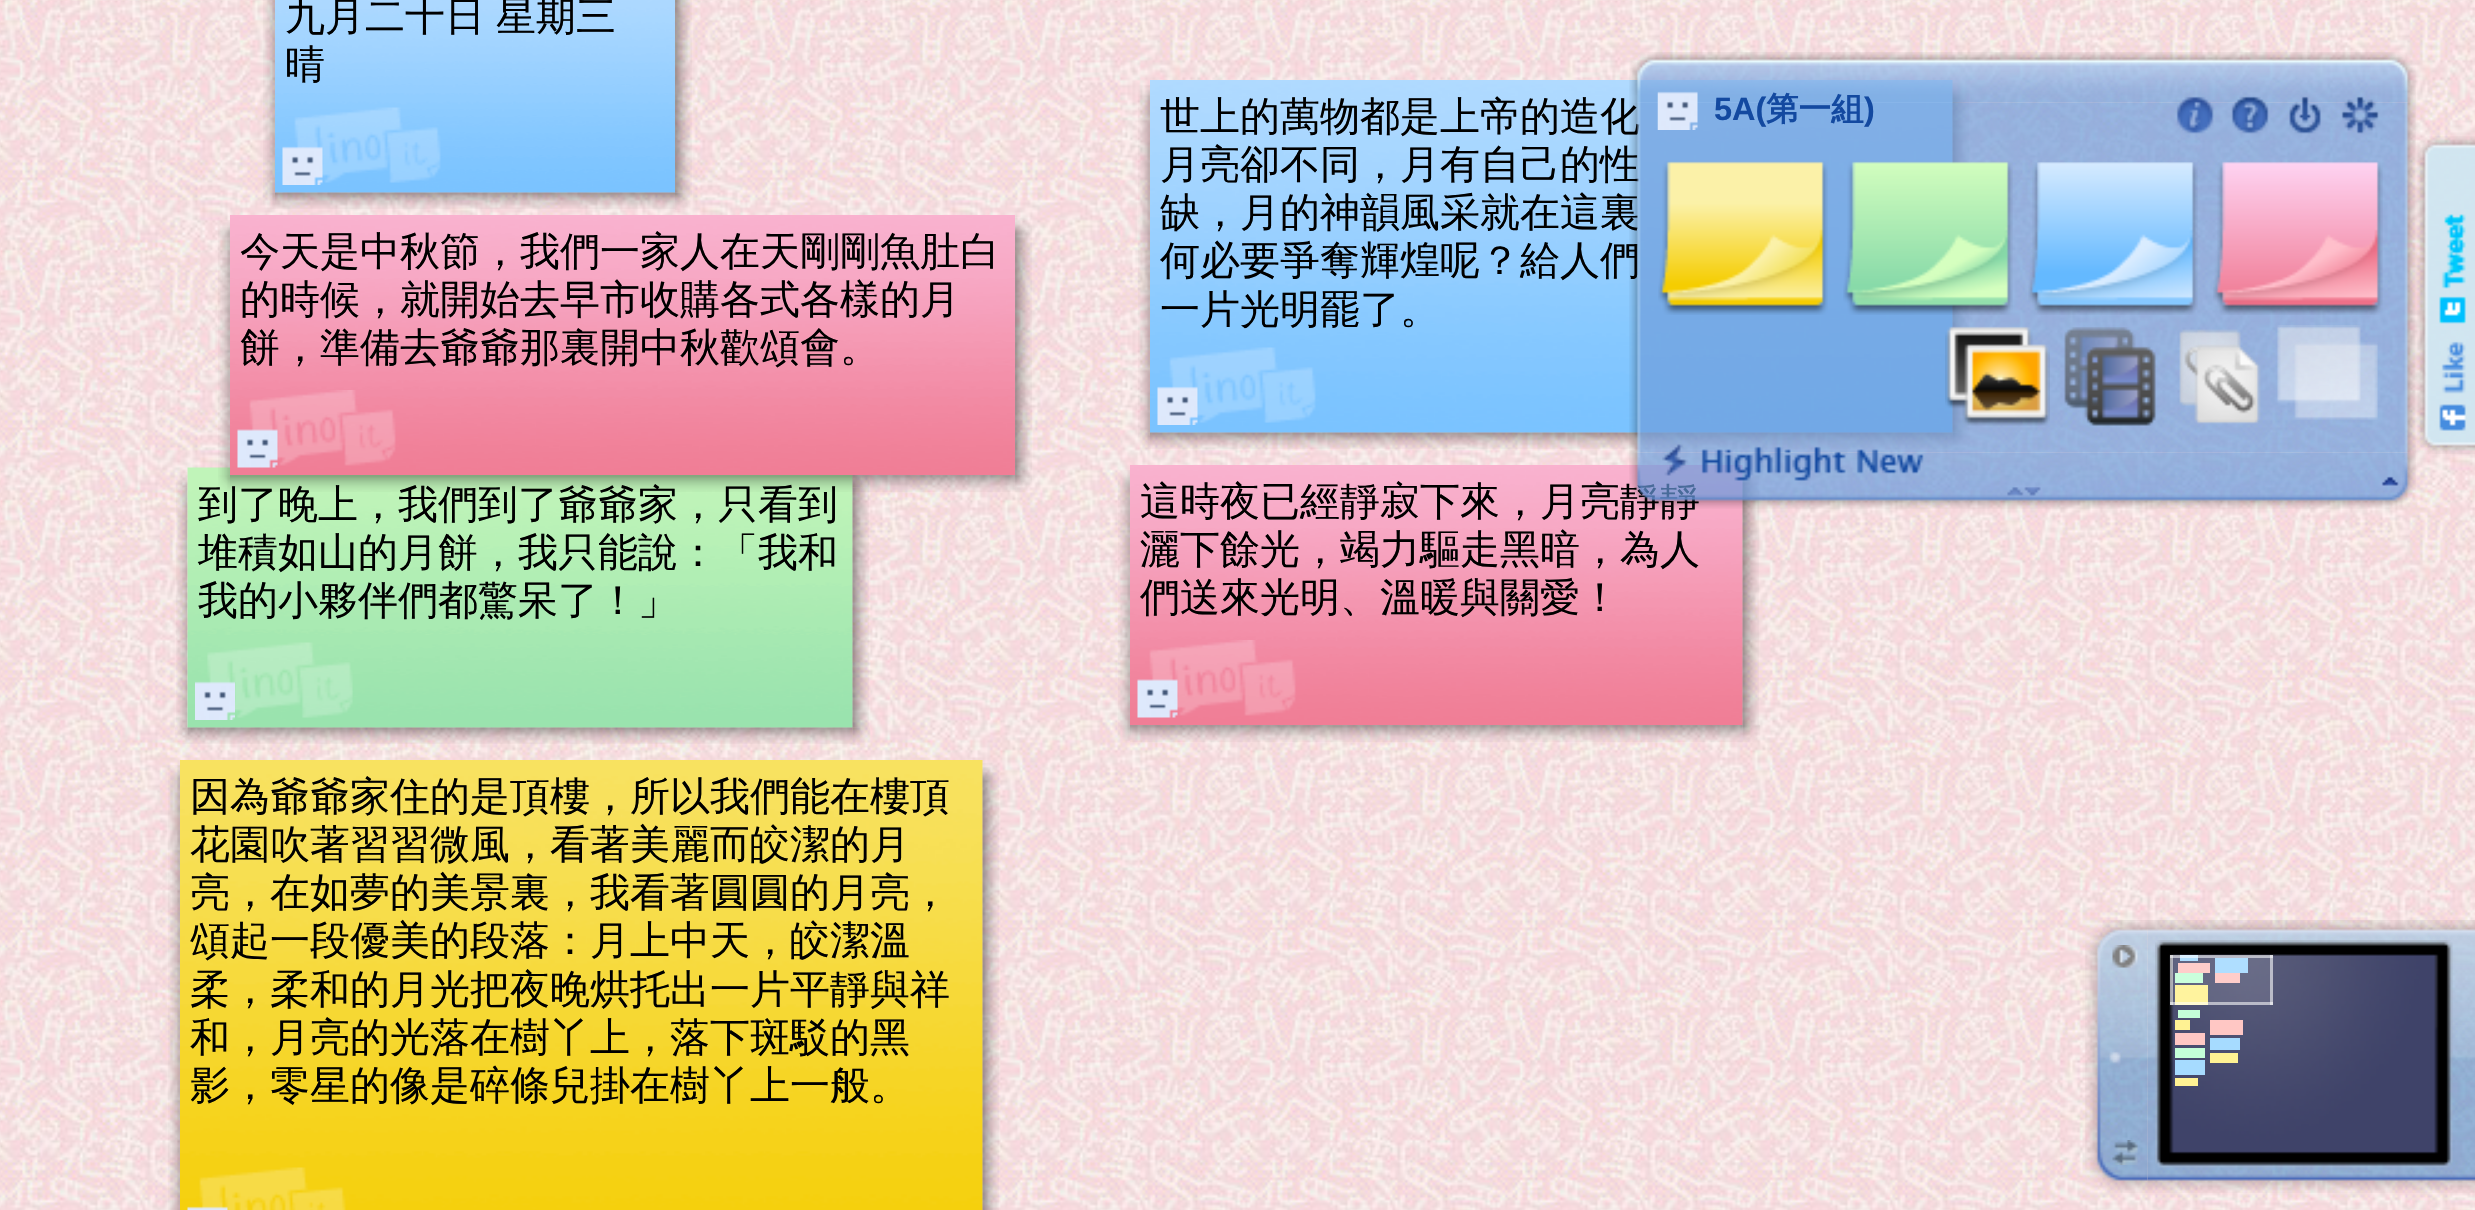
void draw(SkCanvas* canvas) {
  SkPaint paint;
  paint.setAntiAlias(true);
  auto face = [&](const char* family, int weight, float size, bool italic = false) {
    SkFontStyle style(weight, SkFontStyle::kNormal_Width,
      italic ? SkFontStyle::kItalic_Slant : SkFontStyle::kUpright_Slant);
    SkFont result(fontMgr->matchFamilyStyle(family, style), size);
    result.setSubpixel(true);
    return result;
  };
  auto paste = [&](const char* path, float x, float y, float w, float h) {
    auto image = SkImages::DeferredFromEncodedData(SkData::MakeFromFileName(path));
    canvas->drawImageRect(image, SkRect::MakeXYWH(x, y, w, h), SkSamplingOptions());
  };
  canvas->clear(0xffffffff);
  paste("img/1.png", 0, 0, 2475, 1210);
  paste("img/2.png", 263, 0, 12, 193);
  paste("img/3.png", 275, 0, 400, 193);
  paste("img/4.png", 675, 0, 17, 193);
  paste("img/5.png", 263, 192, 12, 17);
  paste("img/6.png", 275, 192, 400, 17);
  paste("img/7.png", 675, 192, 17, 18);
  paste("img/9.png", 294, 107, 147, 76);
  paste("img/8.png", 282, 146, 41, 39);
  paste("img/10.png", 218, 220, 12, 15);
  paste("img/30.png", 176, 472, 12, 16);
  paste("img/33.png", 176, 487, 12, 241);
  paste("img/35.png", 175, 727, 13, 17);
  paste("img/31.png", 187, 467, 666, 261);
  paste("img/11.png", 230, 215, 785, 260);
  paste("img/12.png", 1015, 218, 17, 17);
  paste("img/13.png", 218, 235, 12, 240);
  paste("img/14.png", 1015, 235, 17, 240);
  paste("img/17.png", 1015, 475, 17, 17);
  paste("img/19.png", 249, 390, 147, 76);
  paste("img/18.png", 237, 429, 41, 39);
  paste("img/20.png", 1138, 85, 12, 15);
  paste("img/21.png", 1150, 80, 803, 353);
  paste("img/22.png", 1952, 83, 17, 17);
  paste("img/23.png", 1138, 100, 12, 333);
  paste("img/24.png", 1952, 100, 17, 333);
  paste("img/25.png", 1138, 432, 12, 17);
  paste("img/27.png", 1952, 432, 18, 18);
  paste("img/26.png", 1150, 432, 803, 17);
  paste("img/29.png", 1169, 347, 147, 76);
  paste("img/28.png", 1157, 386, 41, 39);
  paste("img/32.png", 852, 475, 17, 13);
  paste("img/34.png", 852, 487, 17, 241);
  paste("img/37.png", 852, 727, 18, 18);
  paste("img/36.png", 187, 727, 666, 17);
  paste("img/39.png", 207, 642, 146, 76);
  paste("img/38.png", 195, 681, 40, 39);
  paste("img/40.png", 1118, 470, 12, 15);
  paste("img/41.png", 1130, 465, 613, 260);
  paste("img/42.png", 1742, 468, 17, 17);
  paste("img/43.png", 1118, 485, 12, 240);
  paste("img/44.png", 1742, 485, 17, 240);
  paste("img/45.png", 1118, 725, 12, 16);
  paste("img/47.png", 1742, 725, 18, 17);
  paste("img/46.png", 1130, 725, 613, 17);
  paste("img/49.png", 1149, 640, 147, 76);
  paste("img/48.png", 1137, 679, 41, 39);
  paste("img/50.png", 168, 765, 12, 15);
  paste("img/51.png", 180, 760, 803, 450);
  paste("img/52.png", 982, 763, 17, 17);
  paste("img/53.png", 168, 780, 12, 430);
  paste("img/54.png", 982, 780, 17, 430);
  paste("img/56.png", 199, 1167, 147, 43);
  paste("img/55.png", 187, 1206, 41, 4);
  paste("img/76.png", 2416, 136, 59, 318);
  paste("img/80.png", 2147, 920, 328, 273);
  paste("img/77.png", 2085, 920, 63, 273);
  paste("img/78.png", 2112, 945, 26, 23);
  paste("img/79.png", 2112, 1140, 26, 25);
  paste("img/81.png", 2155, 940, 298, 228);
  {
    const struct { float x, y, w, h; SkColor color; } items[] = {
      {2180, 955, 18, 6, 0xffa6dbff},
      {2215, 958, 33, 15, 0xffa6dbff},
      {2178, 963, 32, 10, 0xffffc7c4},
      {2175, 973, 28, 10, 0xffc4ffd8},
      {2215, 973, 25, 10, 0xffffc7c4},
      {2175, 985, 33, 20, 0xfffff293},
      {2170, 955, 103, 50, 0x1affffff},
      {2170, 955, 3, 50, 0x8cffffff},
      {2170, 955, 103, 3, 0x8cffffff},
      {2270, 955, 3, 50, 0x8cffffff},
      {2170, 1002, 103, 3, 0x8cffffff},
      {2178, 1010, 22, 8, 0xffc4ffd8},
      {2175, 1020, 15, 10, 0xfffff293},
      {2210, 1020, 33, 15, 0xffffc7c4},
      {2175, 1033, 30, 12, 0xffffc7c4},
      {2210, 1038, 30, 12, 0xffa6dbff},
      {2175, 1048, 30, 10, 0xffc4ffd8},
      {2210, 1053, 28, 10, 0xfffff293},
      {2175, 1060, 30, 15, 0xffa6dbff},
      {2175, 1078, 23, 8, 0xfffff293},
    };
    for (auto [x, y, w, h, color] : items) {
      paint.setColor(color);
      canvas->drawRect(SkRect::MakeXYWH(x, y, w, h), paint);
    }
  }
  auto f0 = face("WenQuanYi Zen Hei", 500, 40);
  paint.setColor(0xff000000);
  {
    const struct { const char* s; float x, y; } items[] = {
      {"九月二十日", 285, 30},
      {"星期三", 496, 30},
      {"晴", 285, 78},
      {"今天是中秋節，我們一家人在天剛剛魚肚白", 240, 265},
      {"的時候，就開始去早市收購各式各樣的月", 240, 313},
      {"餅，準備去爺爺那裏開中秋歡頌會。", 240, 361},
      {"世上的萬物都是上帝的造化", 1160, 130},
      {"月亮卻不同，月有自己的性", 1160, 178},
      {"缺，月的神韻風采就在這裏", 1160, 226},
      {"何必要爭奪輝煌呢？給人們", 1160, 274},
      {"一片光明罷了。", 1160, 323},
      {"到了晚上，我們到了爺爺家，只看到", 198, 518},
    };
    for (auto [s, x, y] : items) {
      canvas->drawString(s, x, y, f0, paint);
    }
  }
  paste("img/16.png", 230, 475, 785, 17);
  paste("img/15.png", 218, 475, 12, 16);
  {
    const struct { const char* s; float x, y; } items[] = {
      {"堆積如山的月餅，我只能說：「我和", 198, 566},
      {"我的小夥伴們都驚呆了！」", 198, 614},
      {"這時夜已經靜寂下來，月亮靜靜", 1140, 515},
      {"灑下餘光，竭力驅走黑暗，為人", 1140, 563},
      {"們送來光明、溫暖與關愛！", 1140, 611},
      {"因為爺爺家住的是頂樓，所以我們能在樓頂", 190, 810},
      {"花園吹著習習微風，看著美麗而皎潔的月", 190, 858},
      {"亮，在如夢的美景裏，我看著圓圓的月亮，", 190, 906},
      {"頌起一段優美的段落：月上中天，皎潔溫", 190, 954},
      {"柔，柔和的月光把夜晚烘托出一片平靜與祥", 190, 1003},
      {"和，月亮的光落在樹丫上，落下斑駁的黑", 190, 1051},
      {"影，零星的像是碎條兒掛在樹丫上一般。", 190, 1099},
    };
    for (auto [s, x, y] : items) {
      canvas->drawString(s, x, y, f0, paint);
    }
  }
  paste("img/57.png", 1629, 52, 787, 51);
  paste("img/58.png", 1629, 102, 787, 351);
  paste("img/59.png", 1629, 452, 787, 57);
  paste("img/60.png", 1657, 91, 41, 39);
  auto f1 = face("Liberation Sans", 700, 32.5f);
  paint.setColor(0xff1349a0);
  canvas->drawString("5A(", 1714, 120, f1, paint);
  auto f2 = face("WenQuanYi Zen Hei", 700, 32.5f);
  canvas->drawString("第一組", 1766, 120, f2, paint);
  canvas->drawString(")", 1864, 120, f1, paint);
  paste("img/61.png", 2176, 96, 38, 38);
  paste("img/62.png", 2231, 96, 38, 38);
  paste("img/63.png", 2289, 96, 32, 38);
  paste("img/64.png", 2341, 96, 38, 38);
  paste("img/65.png", 1658, 161, 170, 154);
  paste("img/66.png", 1843, 161, 170, 154);
  paste("img/67.png", 2028, 162, 170, 153);
  paste("img/68.png", 2213, 161, 170, 154);
  paste("img/69.png", 1945, 326, 105, 100);
  paste("img/70.png", 2064, 327, 92, 99);
  paste("img/71.png", 2179, 329, 82, 95);
  paste("img/72.png", 2277, 325, 101, 95);
  paste("img/73.png", 1662, 444, 262, 37);
  paste("img/74.png", 2381, 476, 18, 10);
  paste("img/75.png", 2007, 487, 34, 9);
}
